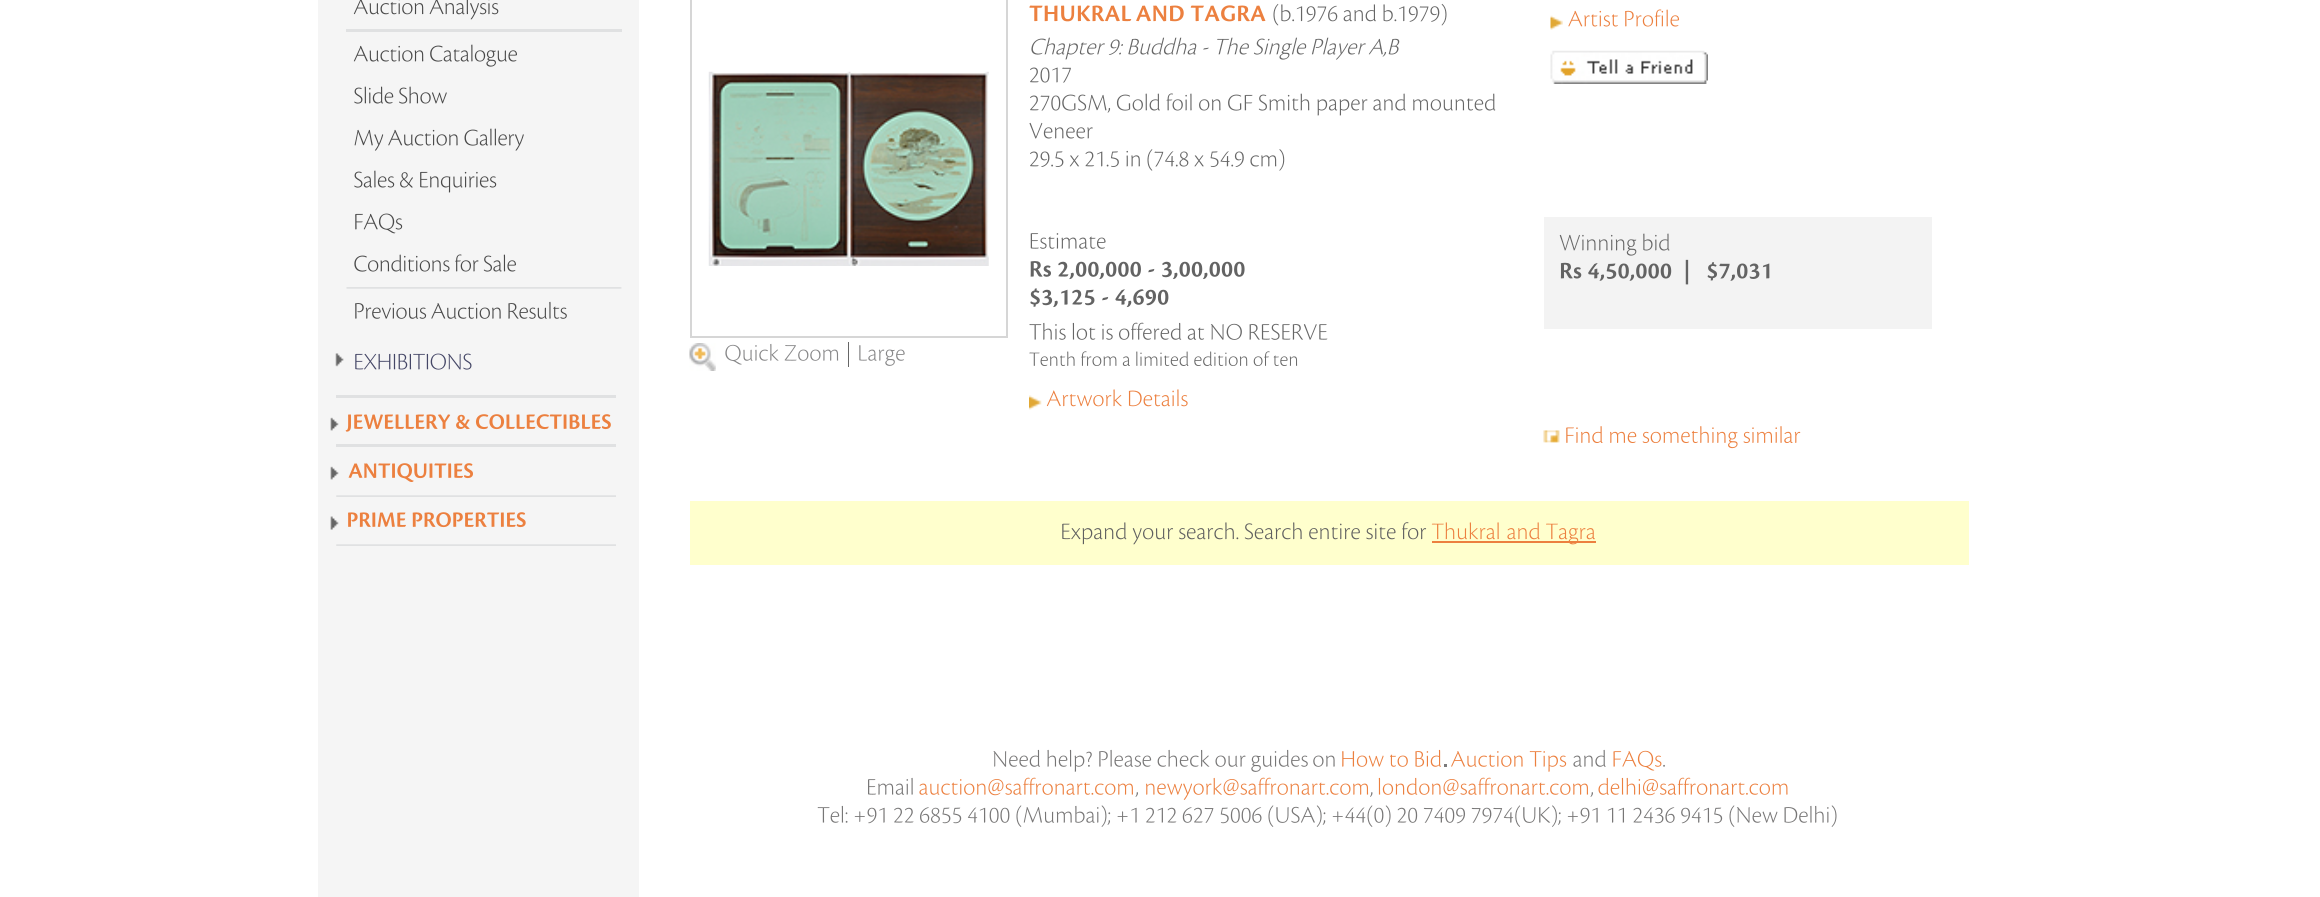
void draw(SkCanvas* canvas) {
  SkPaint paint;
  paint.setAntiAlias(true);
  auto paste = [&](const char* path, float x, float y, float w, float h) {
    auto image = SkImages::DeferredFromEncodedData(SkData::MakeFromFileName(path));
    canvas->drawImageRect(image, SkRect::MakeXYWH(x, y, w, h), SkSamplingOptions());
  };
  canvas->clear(0xffffffff);
  paint.setColor(0xfff5f5f5);
  canvas->drawRect(SkRect::MakeXYWH(318, 0, 321, 897), paint);
  paste("img/1.png", 353, 0, 146, 20);
  paint.setColor(0xffe0e1e2);
  canvas->drawRect(SkRect::MakeXYWH(346, 29, 276, 3), paint);
  paste("img/2.png", 353, 44, 164, 23);
  paste("img/3.png", 354, 86, 93, 18);
  paste("img/4.png", 354, 128, 170, 23);
  paste("img/5.png", 354, 170, 143, 23);
  paste("img/6.png", 355, 213, 48, 21);
  paste("img/7.png", 354, 254, 162, 18);
  paste("img/8.png", 346, 287, 276, 2);
  paste("img/9.png", 355, 301, 212, 18);
  paste("img/10.png", 335, 353, 9, 14);
  paste("img/11.png", 355, 353, 117, 17);
  canvas->drawRect(SkRect::MakeXYWH(336, 395, 280, 3), paint);
  paste("img/12.png", 330, 417, 9, 14);
  paste("img/13.png", 345, 414, 266, 18);
  canvas->drawRect(SkRect::MakeXYWH(336, 444, 280, 3), paint);
  paste("img/12.png", 330, 466, 9, 14);
  paste("img/14.png", 348, 463, 125, 19);
  paste("img/15.png", 336, 495, 280, 2);
  paste("img/16.png", 330, 516, 9, 14);
  paste("img/17.png", 348, 512, 178, 16);
  paste("img/15.png", 336, 544, 280, 2);
  paint.setStroke(true);
  paint.setStrokeWidth(2);
  paint.setColor(0xffd6d6d6);
  canvas->drawRect(SkRect::MakeXYWH(691, -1, 316, 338), paint);
  paste("img/18.png", 708, 71, 281, 195);
  paste("img/19.png", 689, 343, 27, 28);
  paste("img/20.png", 725, 343, 114, 22);
  paint.setStroke(false);
  paint.setColor(0xff666666);
  canvas->drawRect(SkRect::MakeXYWH(848, 342, 1, 25), paint);
  paste("img/21.png", 859, 345, 46, 21);
  paste("img/22.png", 1029, 5, 103, 17);
  paste("img/23.png", 1136, 5, 130, 17);
  paste("img/24.png", 1273, 3, 174, 23);
  paste("img/25.png", 1031, 37, 369, 23);
  paste("img/26.png", 1030, 67, 41, 16);
  paste("img/27.png", 1030, 93, 466, 23);
  paste("img/28.png", 1029, 122, 64, 17);
  paste("img/29.png", 1030, 150, 110, 17);
  paste("img/30.png", 1147, 149, 138, 22);
  paste("img/31.png", 1550, 15, 13, 15);
  paste("img/32.png", 1568, 9, 112, 18);
  paste("img/33.png", 1550, 50, 158, 34);
  paste("img/34.png", 1030, 233, 76, 16);
  paste("img/35.png", 1030, 261, 215, 19);
  paste("img/36.png", 1030, 288, 139, 20);
  paste("img/37.png", 1029, 322, 299, 18);
  paste("img/38.png", 1029, 351, 269, 15);
  paste("img/39.png", 1029, 395, 13, 15);
  paste("img/40.png", 1046, 389, 142, 18);
  paint.setColor(0xfff3f3f3);
  canvas->drawRect(SkRect::MakeXYWH(1544, 217, 388, 112), paint);
  paste("img/41.png", 1559, 233, 111, 23);
  paste("img/42.png", 1560, 259, 129, 26);
  paste("img/43.png", 1707, 262, 63, 19);
  paste("img/44.png", 1543, 430, 17, 13);
  paste("img/45.png", 1566, 426, 235, 23);
  paint.setColor(0xffffffcd);
  canvas->drawRect(SkRect::MakeXYWH(690, 501, 1279, 64), paint);
  paste("img/46.png", 1062, 522, 365, 23);
  paste("img/47.png", 1431, 522, 68, 18);
  paint.setColor(0xffec803f);
  canvas->drawRect(SkRect::MakeXYWH(1432, 541, 164, 2), paint);
  paste("img/48.png", 1507, 522, 88, 23);
  paste("img/49.png", 993, 749, 315, 23);
  paste("img/50.png", 1313, 755, 22, 12);
  paste("img/51.png", 1342, 749, 99, 18);
  paint.setColor(0xff7b7a7a);
  canvas->drawRect(SkRect::MakeXYWH(1444, 764, 3, 3), paint);
  paste("img/52.png", 1451, 751, 116, 21);
  paste("img/53.png", 1573, 749, 33, 18);
  paste("img/54.png", 1613, 750, 49, 21);
  paste("img/55.png", 1663, 764, 2, 3);
  paste("img/56.png", 868, 777, 45, 18);
  paste("img/57.png", 919, 777, 214, 19);
  paste("img/58.png", 1135, 792, 3, 5);
  paste("img/59.png", 1146, 777, 223, 23);
  paste("img/60.png", 1370, 792, 3, 5);
  paste("img/61.png", 1378, 777, 211, 19);
  paste("img/58.png", 1590, 792, 3, 5);
  paste("img/62.png", 1598, 777, 190, 19);
  paste("img/63.png", 817, 805, 744, 22);
  paste("img/64.png", 1567, 805, 270, 22);
}
